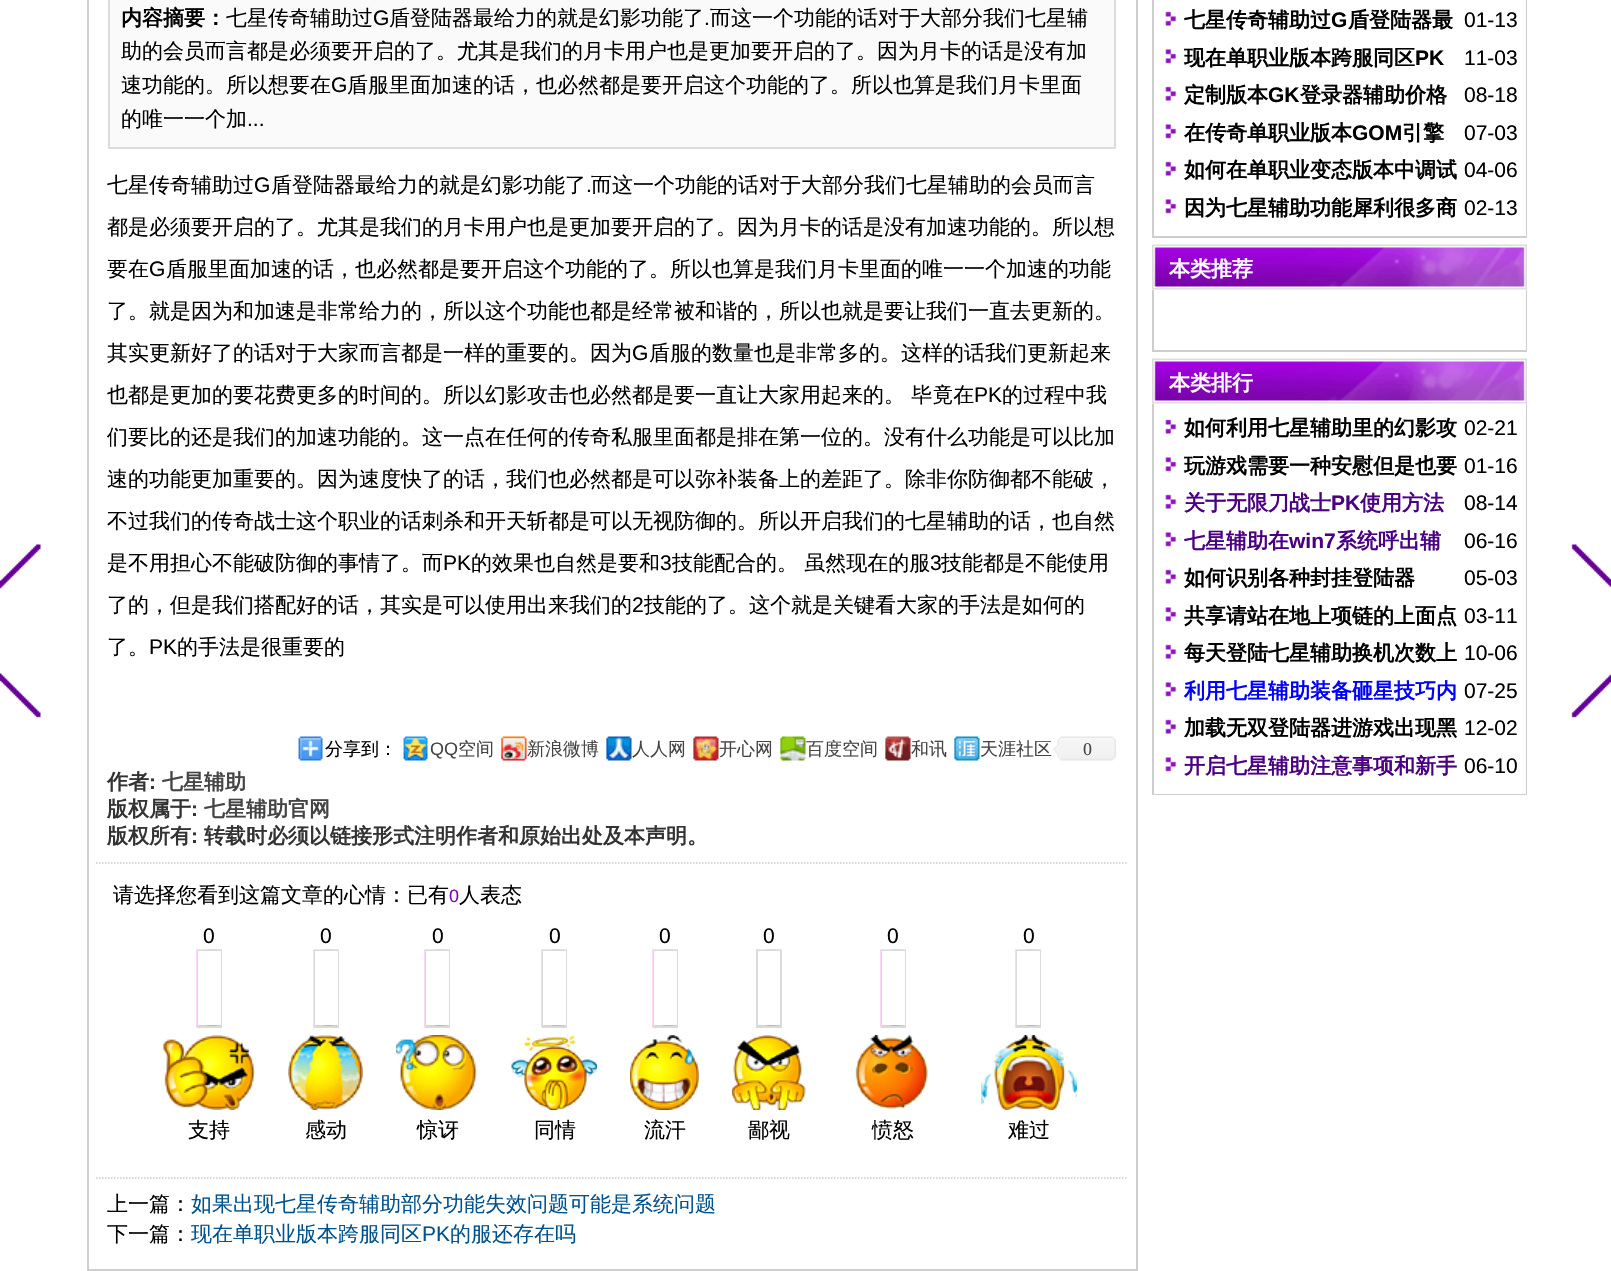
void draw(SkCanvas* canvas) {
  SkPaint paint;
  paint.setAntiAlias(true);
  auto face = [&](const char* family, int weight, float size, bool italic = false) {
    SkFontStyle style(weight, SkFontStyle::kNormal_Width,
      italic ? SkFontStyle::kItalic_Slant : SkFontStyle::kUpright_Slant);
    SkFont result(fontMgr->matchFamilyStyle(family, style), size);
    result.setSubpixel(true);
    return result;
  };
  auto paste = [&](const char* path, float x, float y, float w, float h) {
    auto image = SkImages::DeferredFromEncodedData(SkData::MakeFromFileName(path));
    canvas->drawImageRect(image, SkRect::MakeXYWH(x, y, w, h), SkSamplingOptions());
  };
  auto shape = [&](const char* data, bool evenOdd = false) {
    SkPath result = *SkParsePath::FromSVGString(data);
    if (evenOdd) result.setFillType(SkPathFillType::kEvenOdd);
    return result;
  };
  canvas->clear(0xffffffff);
  {
    const struct { float x, y, w, h; SkColor color; } items[] = {
      {1136, 0, 2, 1271, 0xffcecece},
      {87, 1269, 1050, 2, 0xffcecece},
      {87, 0, 2, 1271, 0xffcecece},
    };
    for (auto [x, y, w, h, color] : items) {
      paint.setColor(color);
      canvas->drawRect(SkRect::MakeXYWH(x, y, w, h), paint);
    }
  }
  paint.setStroke(true);
  paint.setStrokeWidth(1.5f);
  paint.setColor(0xffcccccc);
  paint.setPathEffect(SkDashPathEffect::Make({{1.5f, 1.5f}}, 0));
  canvas->drawPath(shape("M96 863H1128"), paint);
  paint.setPathEffect(nullptr);
  paint.setStroke(false);
  paint.setColor(0xfffafafa);
  canvas->drawRect(SkRect::MakeXYWH(109, -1, 1006, 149), paint);
  paint.setStroke(true);
  paint.setStrokeWidth(2);
  paint.setColor(0xffdcdcdc);
  canvas->drawRect(SkRect::MakeXYWH(109, -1, 1006, 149), paint);
  paste("img/1.png", 0, 544, 41, 174);
  paste("img/2.png", 1571, 544, 40, 174);
  paste("img/3.png", 298, 736, 25, 25);
  paste("img/4.png", 403, 736, 25, 25);
  paste("img/5.png", 501, 736, 26, 25);
  paste("img/6.png", 606, 736, 26, 25);
  paste("img/7.png", 693, 736, 26, 25);
  paste("img/8.png", 780, 736, 26, 25);
  paste("img/9.png", 885, 736, 26, 25);
  paste("img/10.png", 954, 736, 26, 25);
  paste("img/11.png", 1053, 736, 63, 25);
  paint.setStrokeWidth(1.5f);
  paint.setColor(0xffcccccc);
  paint.setPathEffect(SkDashPathEffect::Make({{1.5f, 1.5f}}, 0));
  canvas->drawPath(shape("M96 1178H1128"), paint);
  paint.setPathEffect(nullptr);
  paste("img/12.png", 196, 949, 26, 79);
  paint.setStrokeWidth(2);
  paint.setColor(0xffdadada);
  canvas->drawRect(SkRect::MakeXYWH(198, 951, 23, 76), paint);
  paint.setStroke(false);
  paint.setColor(0xffffffff);
  canvas->drawRect(SkRect::MakeXYWH(198, 951, 23, 74), paint);
  paste("img/13.png", 163, 1035, 92, 75);
  paste("img/12.png", 313, 949, 26, 79);
  paint.setStroke(true);
  paint.setColor(0xffdadada);
  canvas->drawRect(SkRect::MakeXYWH(315, 951, 23, 76), paint);
  paint.setStroke(false);
  paint.setColor(0xffffffff);
  canvas->drawRect(SkRect::MakeXYWH(315, 951, 23, 74), paint);
  paste("img/14.png", 288, 1035, 75, 75);
  paste("img/12.png", 424, 949, 26, 79);
  paint.setStroke(true);
  paint.setColor(0xffdadada);
  canvas->drawRect(SkRect::MakeXYWH(426, 951, 23, 76), paint);
  paint.setStroke(false);
  paint.setColor(0xffffffff);
  canvas->drawRect(SkRect::MakeXYWH(426, 951, 23, 74), paint);
  paste("img/15.png", 396, 1035, 82, 75);
  paste("img/12.png", 541, 949, 26, 79);
  paint.setStroke(true);
  paint.setColor(0xffdadada);
  canvas->drawRect(SkRect::MakeXYWH(543, 951, 23, 76), paint);
  paint.setStroke(false);
  paint.setColor(0xffffffff);
  canvas->drawRect(SkRect::MakeXYWH(543, 951, 23, 74), paint);
  paste("img/16.png", 511, 1035, 86, 75);
  paste("img/12.png", 652, 949, 26, 79);
  paint.setStroke(true);
  paint.setColor(0xffdadada);
  canvas->drawRect(SkRect::MakeXYWH(654, 951, 23, 76), paint);
  paint.setStroke(false);
  paint.setColor(0xffffffff);
  canvas->drawRect(SkRect::MakeXYWH(654, 951, 23, 74), paint);
  paste("img/17.png", 630, 1035, 69, 75);
  paste("img/18.png", 756, 949, 26, 77);
  paint.setStroke(true);
  paint.setColor(0xffdadada);
  canvas->drawRect(SkRect::MakeXYWH(757, 951, 24, 76), paint);
  paint.setStroke(false);
  paint.setColor(0xffffffff);
  canvas->drawRect(SkRect::MakeXYWH(758, 951, 22, 74), paint);
  paste("img/19.png", 732, 1035, 74, 75);
  paste("img/12.png", 880, 949, 26, 79);
  paint.setStroke(true);
  paint.setColor(0xffdadada);
  canvas->drawRect(SkRect::MakeXYWH(882, 951, 23, 76), paint);
  paint.setStroke(false);
  paint.setColor(0xffffffff);
  canvas->drawRect(SkRect::MakeXYWH(882, 951, 23, 74), paint);
  paste("img/20.png", 855, 1035, 73, 74);
  paste("img/12.png", 1015, 949, 26, 79);
  paint.setStroke(true);
  paint.setColor(0xffdadada);
  canvas->drawRect(SkRect::MakeXYWH(1017, 951, 23, 76), paint);
  paint.setStroke(false);
  paint.setColor(0xffffffff);
  canvas->drawRect(SkRect::MakeXYWH(1017, 951, 23, 74), paint);
  paste("img/21.png", 981, 1035, 96, 75);
  {
    const struct { float x, y, w, h; SkColor color; } items[] = {
      {1526, 0, 1, 237, 0xffcecece},
      {1152, 236, 375, 2, 0xffcecece},
      {1152, 0, 2, 237, 0xffcecece},
    };
    for (auto [x, y, w, h, color] : items) {
      paint.setColor(color);
      canvas->drawRect(SkRect::MakeXYWH(x, y, w, h), paint);
    }
  }
  paste("img/22.png", 1165, 11, 11, 15);
  paste("img/23.png", 1165, 49, 11, 15);
  paste("img/22.png", 1165, 86, 11, 15);
  paste("img/23.png", 1165, 124, 11, 15);
  paste("img/22.png", 1165, 161, 11, 15);
  paste("img/23.png", 1165, 199, 11, 15);
  paste("img/24.png", 1152, 244, 375, 46);
  {
    const struct { float x, y, w, h; SkColor color; } items[] = {
      {1526, 290, 1, 61, 0xffcecece},
      {1152, 350, 375, 2, 0xffcecece},
      {1152, 290, 2, 61, 0xffcecece},
    };
    for (auto [x, y, w, h, color] : items) {
      paint.setColor(color);
      canvas->drawRect(SkRect::MakeXYWH(x, y, w, h), paint);
    }
  }
  paste("img/24.png", 1152, 358, 375, 46);
  {
    const struct { float x, y, w, h; SkColor color; } items[] = {
      {1526, 404, 1, 391, 0xffcecece},
      {1152, 794, 375, 1, 0xffcecece},
      {1152, 404, 2, 391, 0xffcecece},
    };
    for (auto [x, y, w, h, color] : items) {
      paint.setColor(color);
      canvas->drawRect(SkRect::MakeXYWH(x, y, w, h), paint);
    }
  }
  paste("img/22.png", 1165, 419, 11, 15);
  paste("img/23.png", 1165, 457, 11, 15);
  paste("img/22.png", 1165, 494, 11, 15);
  paste("img/23.png", 1165, 532, 11, 15);
  paste("img/22.png", 1165, 569, 11, 15);
  paste("img/23.png", 1165, 607, 11, 15);
  paste("img/22.png", 1165, 644, 11, 15);
  paste("img/23.png", 1165, 682, 11, 15);
  paste("img/22.png", 1165, 719, 11, 15);
  paste("img/23.png", 1165, 757, 11, 15);
  auto f0 = face("WenQuanYi Zen Hei", 700, 21);
  paint.setColor(0xff000000);
  canvas->drawString("内容摘要：", 121, 25, f0, paint);
  auto f1 = face("WenQuanYi Zen Hei", 500, 21);
  canvas->drawString("七星传奇辅助过", 226, 25, f1, paint);
  auto f2 = face("Liberation Sans", 400, 21);
  canvas->drawString("G", 373, 25, f2, paint);
  canvas->drawString("盾登陆器最给力的就是幻影功能了", 389, 25, f1, paint);
  canvas->drawString(".", 704, 25, f2, paint);
  {
    const struct { const char* s; float x, y; } items[] = {
      {"而这一个功能的话对于大部分我们七星辅", 710, 25},
      {"助的会员而言都是必须要开启的了。尤其是我们的月卡用户也是更加要开启的了。因为月卡的话是没有加", 121, 58},
      {"速功能的。所以想要在", 121, 92},
    };
    for (auto [s, x, y] : items) {
      canvas->drawString(s, x, y, f1, paint);
    }
  }
  canvas->drawString("G", 331, 92, f2, paint);
  canvas->drawString("盾服里面加速的话，也必然都是要开启这个功能的了。所以也算是我们月卡里面", 347, 92, f1, paint);
  canvas->drawString("的唯一一个加", 121, 126, f1, paint);
  canvas->drawString("...", 247, 126, f2, paint);
  canvas->drawString("七星传奇辅助过", 107, 192, f1, paint);
  canvas->drawString("G", 254, 192, f2, paint);
  canvas->drawString("盾登陆器最给力的就是幻影功能了", 271, 192, f1, paint);
  canvas->drawString(".", 586, 192, f2, paint);
  {
    const struct { const char* s; float x, y; } items[] = {
      {"而这一个功能的话对于大部分我们七星辅助的会员而言", 591, 192},
      {"都是必须要开启的了。尤其是我们的月卡用户也是更加要开启的了。因为月卡的话是没有加速功能的。所以想", 107, 234},
      {"要在", 107, 276},
    };
    for (auto [s, x, y] : items) {
      canvas->drawString(s, x, y, f1, paint);
    }
  }
  canvas->drawString("G", 149, 276, f2, paint);
  {
    const struct { const char* s; float x, y; } items[] = {
      {"盾服里面加速的话，也必然都是要开启这个功能的了。所以也算是我们月卡里面的唯一一个加速的功能", 166, 276},
      {"了。就是因为和加速是非常给力的，所以这个功能也都是经常被和谐的，所以也就是要让我们一直去更新的。", 107, 318},
      {"其实更新好了的话对于大家而言都是一样的重要的。因为", 107, 360},
    };
    for (auto [s, x, y] : items) {
      canvas->drawString(s, x, y, f1, paint);
    }
  }
  canvas->drawString("G", 632, 360, f2, paint);
  canvas->drawString("盾服的数量也是非常多的。这样的话我们更新起来", 649, 360, f1, paint);
  canvas->drawString("也都是更加的要花费更多的时间的。所以幻影攻击也必然都是要一直让大家用起来的。 毕竟在", 107, 402, f1, paint);
  canvas->drawString("PK", 974, 402, f2, paint);
  {
    const struct { const char* s; float x, y; } items[] = {
      {"的过程中我", 1002, 402},
      {"们要比的还是我们的加速功能的。这一点在任何的传奇私服里面都是排在第一位的。没有什么功能是可以比加", 107, 444},
      {"速的功能更加重要的。因为速度快了的话，我们也必然都是可以弥补装备上的差距了。除非你防御都不能破，", 107, 486},
      {"不过我们的传奇战士这个职业的话刺杀和开天斩都是可以无视防御的。所以开启我们的七星辅助的话，也自然", 107, 528},
      {"是不用担心不能破防御的事情了。而", 107, 570},
    };
    for (auto [s, x, y] : items) {
      canvas->drawString(s, x, y, f1, paint);
    }
  }
  canvas->drawString("PK", 443, 570, f2, paint);
  canvas->drawString("的效果也自然是要和", 471, 570, f1, paint);
  canvas->drawString("3", 660, 570, f2, paint);
  canvas->drawString("技能配合的。 虽然现在的服", 672, 570, f1, paint);
  canvas->drawString("3", 930, 570, f2, paint);
  canvas->drawString("技能都是不能使用", 941, 570, f1, paint);
  canvas->drawString("了的，但是我们搭配好的话，其实是可以使用出来我们的", 107, 612, f1, paint);
  canvas->drawString("2", 632, 612, f2, paint);
  canvas->drawString("技能的了。这个就是关键看大家的手法是如何的", 644, 612, f1, paint);
  canvas->drawString("了。", 107, 654, f1, paint);
  canvas->drawString("PK", 149, 654, f2, paint);
  canvas->drawString("的手法是很重要的", 177, 654, f1, paint);
  auto f3 = face("WenQuanYi Zen Hei", 500, 18);
  canvas->drawString("分享到：", 325, 755, f3, paint);
  auto f4 = face("Liberation Sans", 400, 18);
  paint.setColor(0xff444444);
  canvas->drawString("QQ", 430, 755, f4, paint);
  {
    const struct { const char* s; float x, y; } items[] = {
      {"空间", 458, 755},
      {"新浪微博", 527, 755},
      {"人人网", 632, 755},
      {"开心网", 719, 755},
      {"百度空间", 806, 755},
      {"和讯", 911, 755},
      {"天涯社区", 980, 755},
    };
    for (auto [s, x, y] : items) {
      canvas->drawString(s, x, y, f3, paint);
    }
  }
  auto f5 = face("Liberation Serif", 400, 18);
  canvas->drawString("0", 1083, 755, f5, paint);
  paint.setColor(0xff333333);
  canvas->drawString("作者", 107, 789, f0, paint);
  auto f6 = face("Liberation Sans", 700, 21);
  canvas->drawString(":", 149, 789, f6, paint);
  paint.setColor(0xff444444);
  canvas->drawString("七星辅助", 162, 789, f0, paint);
  paint.setColor(0xff333333);
  canvas->drawString("版权属于", 107, 816, f0, paint);
  canvas->drawString(":", 191, 816, f6, paint);
  paint.setColor(0xff444444);
  canvas->drawString("七星辅助官网", 204, 816, f0, paint);
  paint.setColor(0xff333333);
  canvas->drawString("版权所有", 107, 843, f0, paint);
  canvas->drawString(":", 191, 843, f6, paint);
  canvas->drawString("转载时必须以链接形式注明作者和原始出处及本声明。", 204, 843, f0, paint);
  paint.setColor(0xff000000);
  canvas->drawString("请选择您看到这篇文章的心情：已有", 113, 902, f1, paint);
  paint.setColor(0xff8001b2);
  canvas->drawString("0", 449, 902, f4, paint);
  paint.setColor(0xff000000);
  canvas->drawString("人表态", 459, 902, f1, paint);
  canvas->drawString("0", 203, 943, f2, paint);
  canvas->drawString("支持", 188, 1137, f1, paint);
  canvas->drawString("0", 320, 943, f2, paint);
  canvas->drawString("感动", 305, 1137, f1, paint);
  canvas->drawString("0", 432, 943, f2, paint);
  canvas->drawString("惊讶", 417, 1137, f1, paint);
  canvas->drawString("0", 549, 943, f2, paint);
  canvas->drawString("同情", 534, 1137, f1, paint);
  canvas->drawString("0", 659, 943, f2, paint);
  canvas->drawString("流汗", 644, 1137, f1, paint);
  canvas->drawString("0", 763, 943, f2, paint);
  canvas->drawString("鄙视", 748, 1137, f1, paint);
  canvas->drawString("0", 887, 943, f2, paint);
  canvas->drawString("愤怒", 872, 1137, f1, paint);
  canvas->drawString("0", 1023, 943, f2, paint);
  canvas->drawString("难过", 1008, 1137, f1, paint);
  canvas->drawString("上一篇：", 107, 1211, f1, paint);
  paint.setColor(0xff00528e);
  canvas->drawString("如果出现七星传奇辅助部分功能失效问题可能是系统问题", 191, 1211, f1, paint);
  paint.setColor(0xff000000);
  canvas->drawString("下一篇：", 107, 1241, f1, paint);
  paint.setColor(0xff00528e);
  canvas->drawString("现在单职业版本跨服同区", 191, 1241, f1, paint);
  canvas->drawString("PK", 422, 1241, f2, paint);
  canvas->drawString("的服还存在吗", 450, 1241, f1, paint);
  paint.setColor(0xff000000);
  canvas->drawString("七星传奇辅助过", 1184, 27, f0, paint);
  canvas->drawString("G", 1331, 27, f6, paint);
  canvas->drawString("盾登陆器最", 1348, 27, f0, paint);
  canvas->drawString("01-13", 1464, 27, f2, paint);
  canvas->drawString("现在单职业版本跨服同区", 1184, 65, f0, paint);
  canvas->drawString("PK", 1415, 65, f6, paint);
  canvas->drawString("11-03", 1464, 65, f2, paint);
  canvas->drawString("定制版本", 1184, 102, f0, paint);
  canvas->drawString("GK", 1268, 102, f6, paint);
  canvas->drawString("登录器辅助价格", 1300, 102, f0, paint);
  canvas->drawString("08-18", 1464, 102, f2, paint);
  canvas->drawString("在传奇单职业版本", 1184, 140, f0, paint);
  canvas->drawString("GOM", 1352, 140, f6, paint);
  canvas->drawString("引擎", 1402, 140, f0, paint);
  canvas->drawString("07-03", 1464, 140, f2, paint);
  canvas->drawString("如何在单职业变态版本中调试", 1184, 177, f0, paint);
  canvas->drawString("04-06", 1464, 177, f2, paint);
  canvas->drawString("因为七星辅助功能犀利很多商", 1184, 215, f0, paint);
  canvas->drawString("02-13", 1464, 215, f2, paint);
  paint.setColor(0xffffffff);
  canvas->drawString("本类推荐", 1169, 276, f0, paint);
  canvas->drawString("本类排行", 1169, 390, f0, paint);
  paint.setColor(0xff000000);
  canvas->drawString("如何利用七星辅助里的幻影攻", 1184, 435, f0, paint);
  canvas->drawString("02-21", 1464, 435, f2, paint);
  canvas->drawString("玩游戏需要一种安慰但是也要", 1184, 473, f0, paint);
  canvas->drawString("01-16", 1464, 473, f2, paint);
  paint.setColor(0xff4b0082);
  canvas->drawString("关于无限刀战士", 1184, 510, f0, paint);
  canvas->drawString("PK", 1331, 510, f6, paint);
  canvas->drawString("使用方法", 1360, 510, f0, paint);
  paint.setColor(0xff000000);
  canvas->drawString("08-14", 1464, 510, f2, paint);
  paint.setColor(0xff4b0082);
  canvas->drawString("七星辅助在", 1184, 548, f0, paint);
  canvas->drawString("win7", 1289, 548, f6, paint);
  canvas->drawString("系统呼出辅", 1336, 548, f0, paint);
  paint.setColor(0xff000000);
  canvas->drawString("06-16", 1464, 548, f2, paint);
  canvas->drawString("如何识别各种封挂登陆器", 1184, 585, f0, paint);
  canvas->drawString("05-03", 1464, 585, f2, paint);
  canvas->drawString("共享请站在地上项链的上面点", 1184, 623, f0, paint);
  canvas->drawString("03-11", 1464, 623, f2, paint);
  canvas->drawString("每天登陆七星辅助换机次数上", 1184, 660, f0, paint);
  canvas->drawString("10-06", 1464, 660, f2, paint);
  paint.setColor(0xff0000ff);
  canvas->drawString("利用七星辅助装备砸星技巧内", 1184, 698, f0, paint);
  paint.setColor(0xff000000);
  canvas->drawString("07-25", 1464, 698, f2, paint);
  canvas->drawString("加载无双登陆器进游戏出现黑", 1184, 735, f0, paint);
  canvas->drawString("12-02", 1464, 735, f2, paint);
  paint.setColor(0xff4b0082);
  canvas->drawString("开启七星辅助注意事项和新手", 1184, 773, f0, paint);
  paint.setColor(0xff000000);
  canvas->drawString("06-10", 1464, 773, f2, paint);
}
